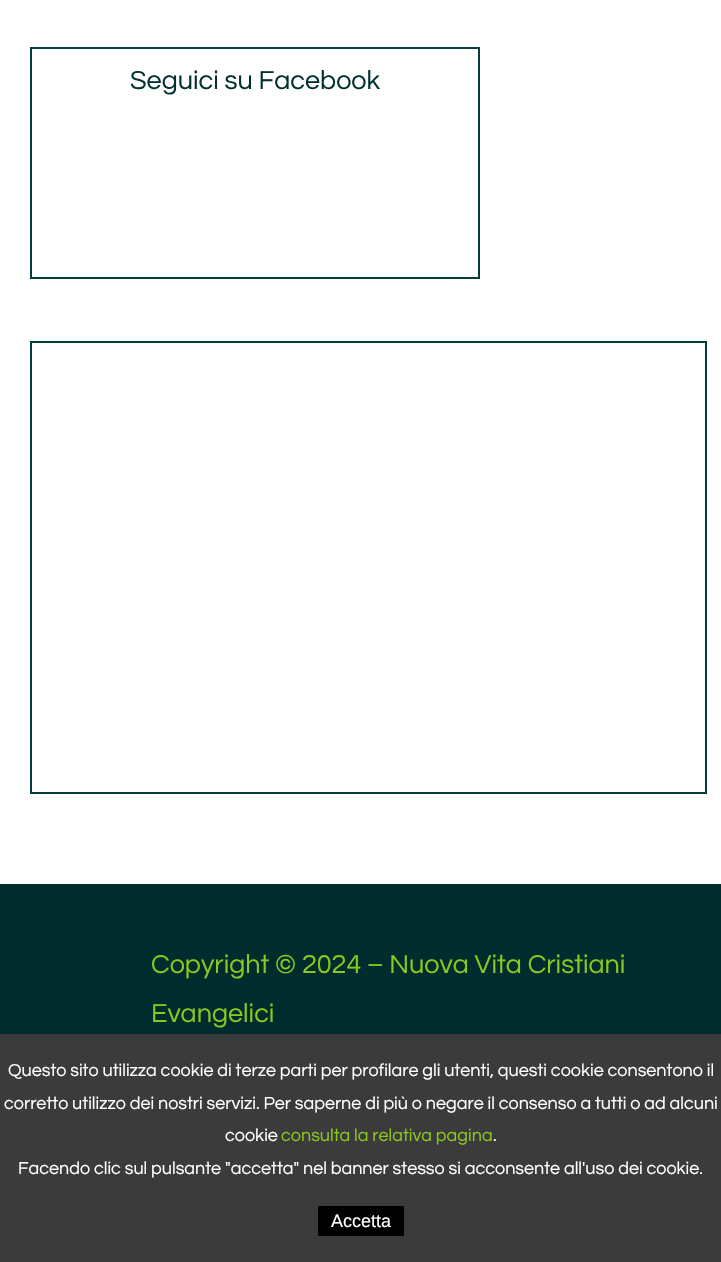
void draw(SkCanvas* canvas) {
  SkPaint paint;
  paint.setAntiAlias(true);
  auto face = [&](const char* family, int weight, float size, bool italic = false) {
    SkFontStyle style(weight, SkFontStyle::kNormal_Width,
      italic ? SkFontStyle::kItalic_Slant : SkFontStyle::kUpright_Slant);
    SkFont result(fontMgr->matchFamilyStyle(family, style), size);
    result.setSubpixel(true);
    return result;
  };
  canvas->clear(0xffffffff);
  paint.setStroke(true);
  paint.setStrokeWidth(2);
  paint.setColor(0xff033c3a);
  canvas->drawRect(SkRect::MakeXYWH(31, 48, 448, 230), paint);
  canvas->drawRect(SkRect::MakeXYWH(31, 342, 675, 451), paint);
  paint.setStroke(false);
  {
    const struct { float x, y, w, h; SkColor color; } items[] = {
      {0, 884, 721, 150, 0xff002c2d},
      {0, 1034, 721, 228, 0xff3b3b3b},
      {318, 1206, 86, 30, 0xff000000},
    };
    for (auto [x, y, w, h, color] : items) {
      paint.setColor(color);
      canvas->drawRect(SkRect::MakeXYWH(x, y, w, h), paint);
    }
  }
  auto f0 = face("Questrial", 400, 27);
  paint.setColor(0xff013130);
  canvas->drawString("Seguici su Facebook", 130, 89, f0, paint);
  paint.setColor(0xff89c81f);
  canvas->drawString("Copyright © 2024 – Nuova Vita Cristiani", 151, 973, f0, paint);
  canvas->drawString("Evangelici", 151, 1022, f0, paint);
  auto f1 = face("Questrial", 400, 18);
  paint.setColor(0xffffffff);
  {
    const struct { const char* s; float x, y; } items[] = {
      {"Questo sito utilizza cookie di terze parti per profilare gli utenti, questi cookie consentono il", 8, 1076},
      {"corretto utilizzo dei nostri servizi. Per saperne di più o negare il consenso a tutti o ad alcuni", 4, 1109},
      {"cookie", 225, 1141},
    };
    for (auto [s, x, y] : items) {
      canvas->drawString(s, x, y, f1, paint);
    }
  }
  paint.setColor(0xff89c81f);
  canvas->drawString("consulta la relativa pagina", 281, 1141, f1, paint);
  paint.setColor(0xffffffff);
  canvas->drawString(".", 493, 1141, f1, paint);
  canvas->drawString("Facendo clic sul pulsante \"accetta\" nel banner stesso si acconsente all'uso dei cookie.", 18, 1174, f1, paint);
  auto f2 = face("Liberation Sans", 400, 18);
  canvas->drawString("Accetta", 331, 1227, f2, paint);
}
